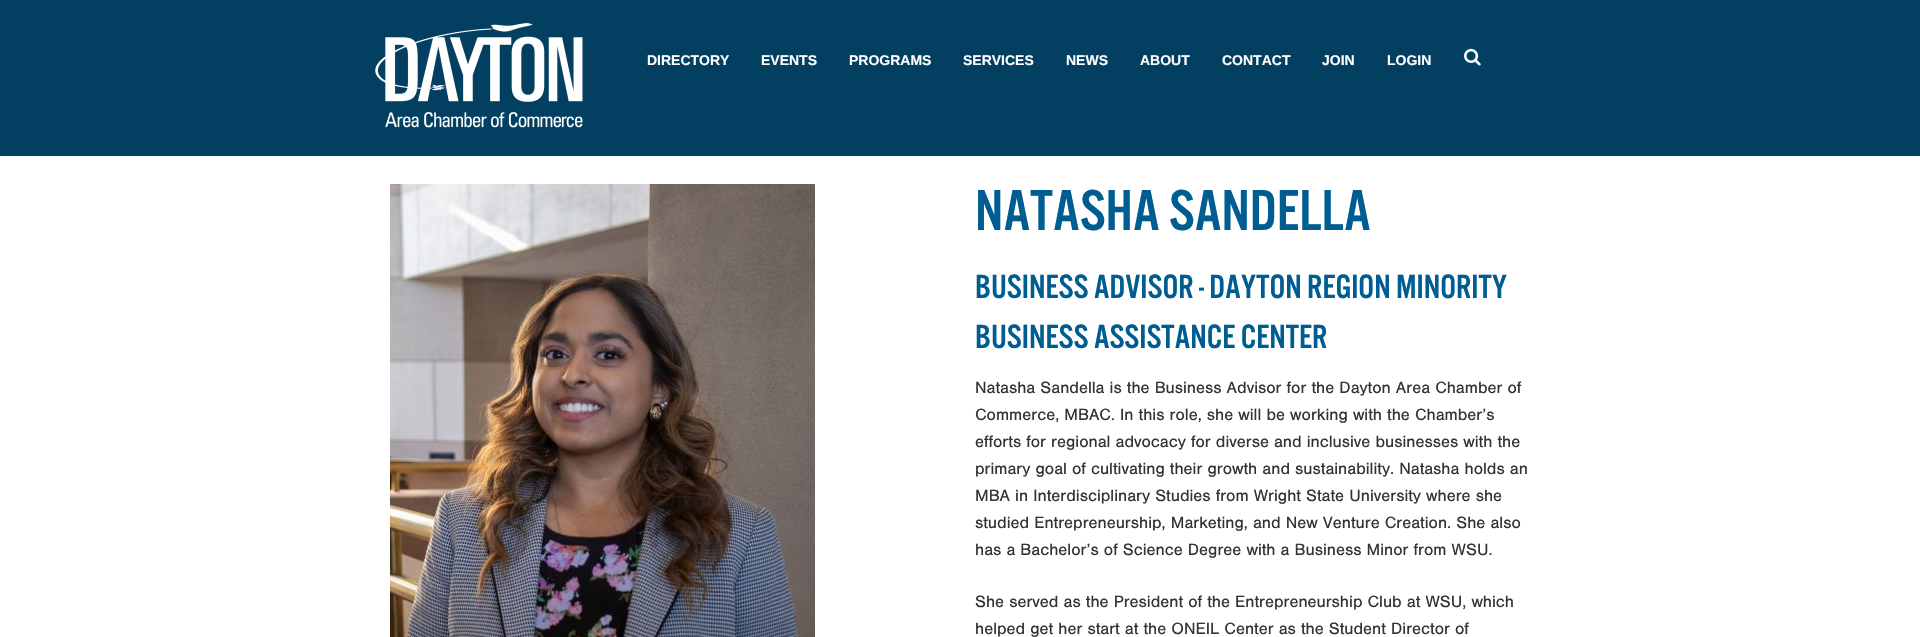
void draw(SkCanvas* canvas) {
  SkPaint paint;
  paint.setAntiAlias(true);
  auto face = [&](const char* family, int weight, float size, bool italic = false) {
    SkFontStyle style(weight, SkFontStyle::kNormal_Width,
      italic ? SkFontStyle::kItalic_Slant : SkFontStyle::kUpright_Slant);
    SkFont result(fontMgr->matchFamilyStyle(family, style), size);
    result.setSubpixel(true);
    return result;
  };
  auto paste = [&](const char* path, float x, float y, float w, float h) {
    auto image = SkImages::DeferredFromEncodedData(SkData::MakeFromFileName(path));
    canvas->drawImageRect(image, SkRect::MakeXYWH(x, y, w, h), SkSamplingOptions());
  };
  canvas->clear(0xffffffff);
  paint.setColor(0xff023f61);
  canvas->drawRect(SkRect::MakeXYWH(0, 0, 1920, 156), paint);
  paste("img/1.png", 375, 23, 208, 105);
  paste("img/2.png", 1464, 48, 17, 18);
  paste("img/3.png", 390, 184, 425, 453);
  auto f0 = face("Liberation Sans", 700, 14);
  paint.setColor(0xffffffff);
  {
    const struct { const char* s; float x, y; } items[] = {
      {"DIRECTORY", 647, 65},
      {"EVENTS", 761, 65},
      {"PROGRAMS", 849, 65},
      {"SERVICES", 963, 65},
      {"NEWS", 1066, 65},
      {"ABOUT", 1140, 65},
      {"CONTACT", 1222, 65},
      {"JOIN", 1322, 65},
      {"LOGIN", 1387, 65},
    };
    for (auto [s, x, y] : items) {
      canvas->drawString(s, x, y, f0, paint);
    }
  }
  auto f1 = face("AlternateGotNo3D", 400, 60);
  paint.setColor(0xff005d91);
  canvas->drawString("NATASHA SANDELLA", 975, 230, f1, paint);
  auto f2 = face("AlternateGotNo3D", 400, 35);
  canvas->drawString("BUSINESS ADVISOR - DAYTON REGION MINORITY", 975, 298, f2, paint);
  canvas->drawString("BUSINESS ASSISTANCE CENTER", 975, 348, f2, paint);
  auto f3 = face("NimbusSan", 400, 17);
  paint.setColor(0xff333333);
  {
    const struct { const char* s; float x, y; } items[] = {
      {"Natasha Sandella is the Business Advisor for the Dayton Area Chamber of", 975, 393},
      {"Commerce, MBAC. In this role, she will be working with the Chamber’s", 975, 420},
      {"efforts for regional advocacy for diverse and inclusive businesses with the", 975, 447},
      {"primary goal of cultivating their growth and sustainability. Natasha holds an", 975, 474},
      {"MBA in Interdisciplinary Studies from Wright State University where she", 975, 501},
      {"studied Entrepreneurship, Marketing, and New Venture Creation. She also", 975, 528},
      {"has a Bachelor’s of Science Degree with a Business Minor from WSU.", 975, 555},
      {"She served as the President of the Entrepreneurship Club at WSU, which", 975, 607},
      {"helped get her start at the ONEIL Center as the Student Director of", 975, 634},
    };
    for (auto [s, x, y] : items) {
      canvas->drawString(s, x, y, f3, paint);
    }
  }
}
